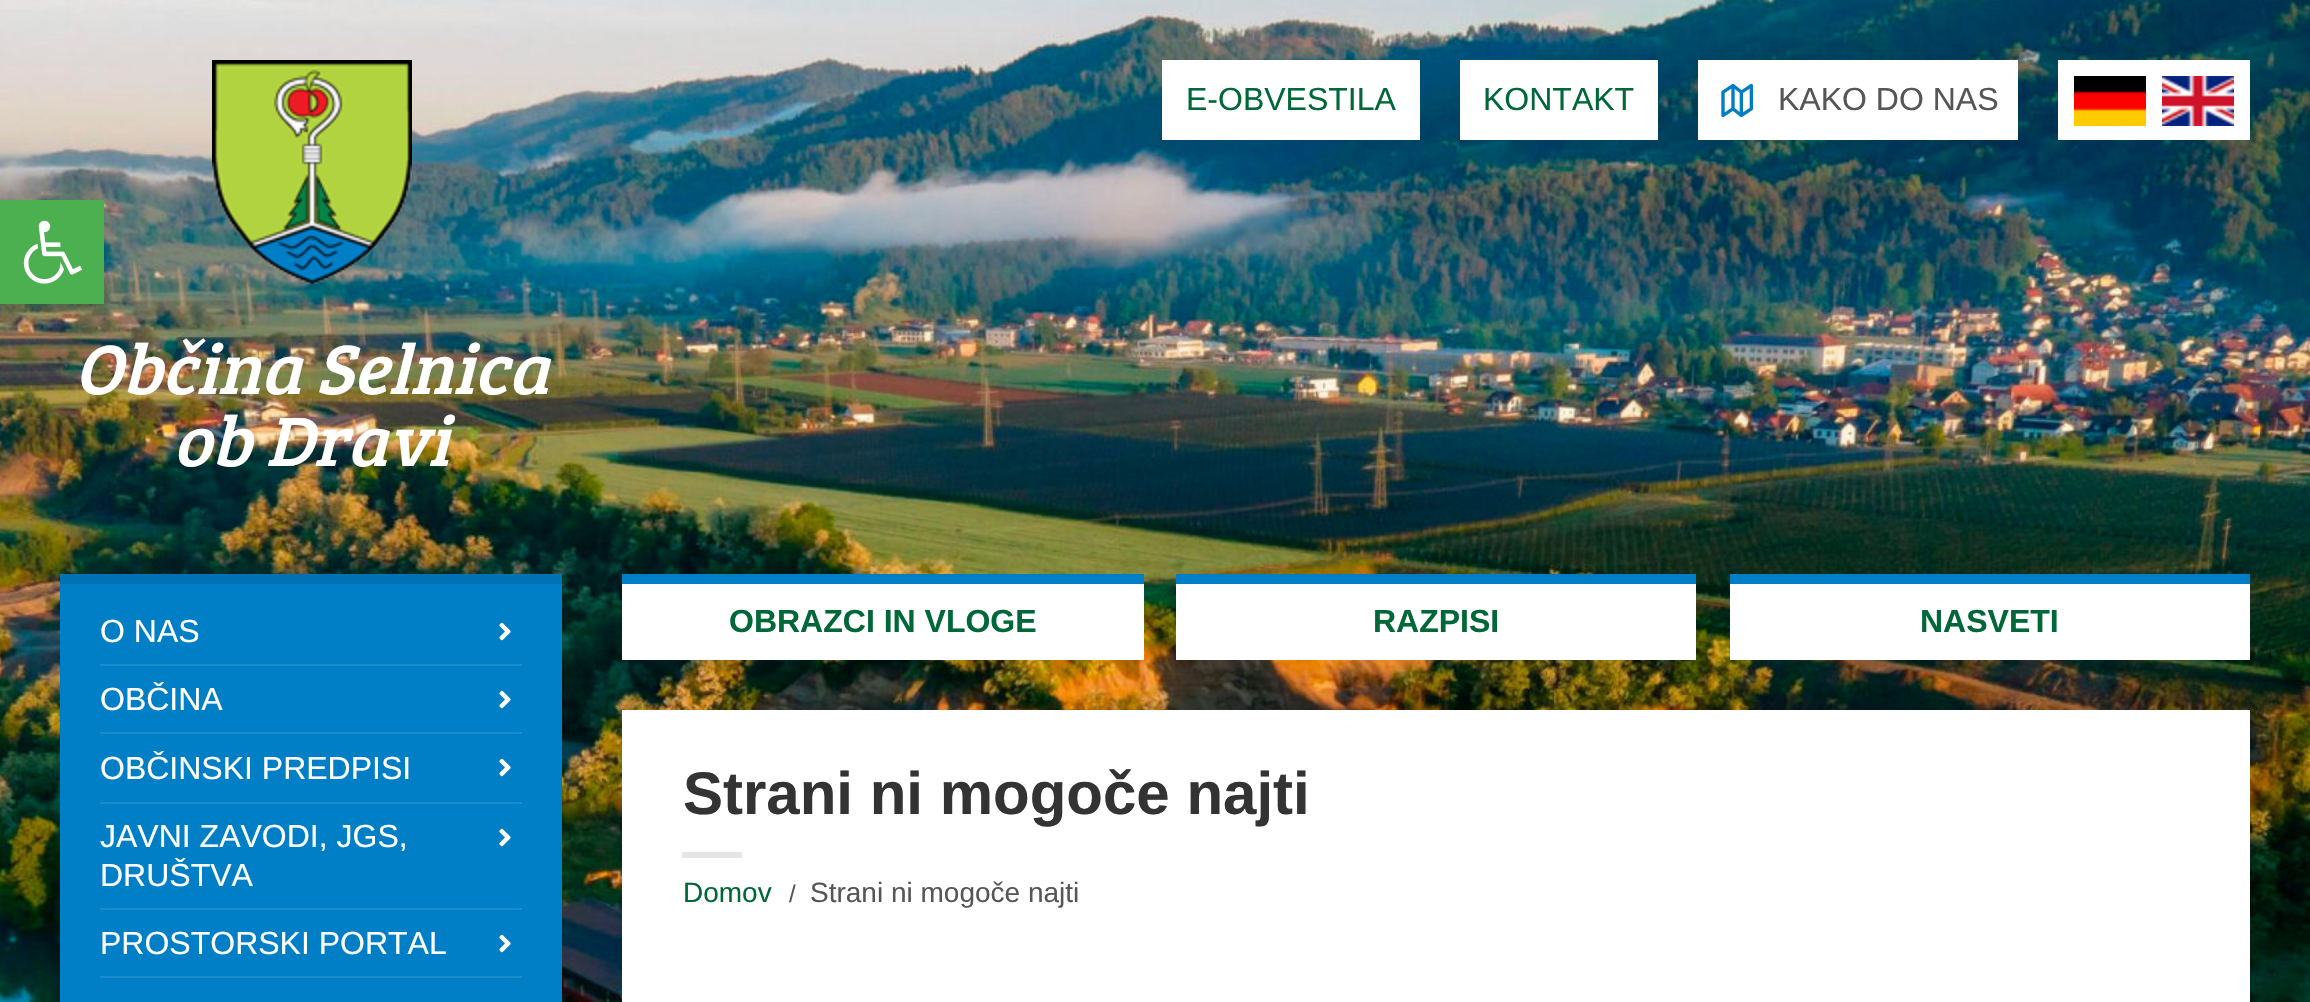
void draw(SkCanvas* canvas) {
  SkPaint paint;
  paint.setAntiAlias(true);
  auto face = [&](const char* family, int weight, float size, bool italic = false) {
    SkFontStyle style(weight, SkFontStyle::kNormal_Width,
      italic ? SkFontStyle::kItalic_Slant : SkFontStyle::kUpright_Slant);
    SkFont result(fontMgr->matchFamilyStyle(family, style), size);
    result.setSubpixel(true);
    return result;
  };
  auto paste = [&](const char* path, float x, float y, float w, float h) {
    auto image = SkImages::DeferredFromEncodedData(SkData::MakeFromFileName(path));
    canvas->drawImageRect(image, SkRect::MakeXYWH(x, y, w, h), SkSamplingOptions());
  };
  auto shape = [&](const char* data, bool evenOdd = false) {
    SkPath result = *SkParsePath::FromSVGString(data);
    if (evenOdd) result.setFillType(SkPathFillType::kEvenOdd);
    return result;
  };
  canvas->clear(0xffffffff);
  paste("img/1.png", 0, 0, 2310, 1002);
  paint.setColor(0x1a000000);
  paint.setMaskFilter(SkMaskFilter::MakeBlur(kNormal_SkBlurStyle, 10));
  canvas->drawRect(SkRect::MakeXYWH(0, 200, 104, 104), paint);
  paint.setMaskFilter(nullptr);
  paint.setColor(0xff4caf50);
  canvas->drawRect(SkRect::MakeXYWH(0, 200, 104, 104), paint);
  paste("img/2.png", 23, 220, 59, 64);
  {
    const struct { float x, y, w, h; SkColor color; } items[] = {
      {1162, 60, 258, 80, 0xffffffff},
      {1460, 60, 198, 80, 0xffffffff},
      {1698, 60, 320, 80, 0xffffffff},
    };
    for (auto [x, y, w, h, color] : items) {
      paint.setColor(color);
      canvas->drawRect(SkRect::MakeXYWH(x, y, w, h), paint);
    }
  }
  paste("img/3.png", 1721, 83, 32, 35);
  canvas->drawRect(SkRect::MakeXYWH(2058, 60, 192, 80), paint);
  paste("img/4.png", 2074, 76, 72, 50);
  paste("img/5.png", 2162, 76, 72, 50);
  paste("img/6.png", 212, 60, 200, 224);
  paint.setColor(0xff007ec6);
  canvas->drawRect(SkRect::MakeXYWH(60, 584, 502, 418), paint);
  paint.setColor(0xff0071b2);
  canvas->drawRect(SkRect::MakeXYWH(60, 574, 502, 10), paint);
  paste("img/7.png", 499, 622, 12, 19);
  paint.setColor(0xff1a8bcc);
  canvas->drawRect(SkRect::MakeXYWH(100, 664, 422, 2), paint);
  paste("img/7.png", 499, 690, 12, 19);
  canvas->drawRect(SkRect::MakeXYWH(100, 732, 422, 2), paint);
  paste("img/7.png", 499, 758, 12, 19);
  canvas->drawRect(SkRect::MakeXYWH(100, 802, 422, 2), paint);
  paste("img/7.png", 499, 828, 12, 19);
  canvas->drawRect(SkRect::MakeXYWH(100, 908, 422, 2), paint);
  paste("img/7.png", 499, 934, 12, 19);
  {
    const struct { float x, y, w, h; SkColor color; } items[] = {
      {100, 976, 422, 2, 0xff1a8bcc},
      {622, 574, 522, 10, 0xff007ec6},
      {622, 584, 522, 76, 0xffffffff},
      {1176, 574, 520, 10, 0xff007ec6},
      {1176, 584, 520, 76, 0xffffffff},
      {1730, 574, 520, 10, 0xff007ec6},
      {1730, 584, 520, 76, 0xffffffff},
    };
    for (auto [x, y, w, h, color] : items) {
      paint.setColor(color);
      canvas->drawRect(SkRect::MakeXYWH(x, y, w, h), paint);
    }
  }
  paint.setColor(0x0d000000);
  canvas->drawPath(shape("M624 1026V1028H2252V934H2250V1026Z"), paint);
  paint.setColor(0xffffffff);
  canvas->drawRect(SkRect::MakeXYWH(622, 710, 1628, 292), paint);
  paint.setColor(0xffe5e5e5);
  canvas->drawRect(SkRect::MakeXYWH(682, 852, 60, 6), paint);
  auto f0 = face("Liberation Sans", 400, 32);
  paint.setColor(0xff006838);
  canvas->drawString("E-OBVESTILA", 1186, 110, f0, paint);
  canvas->drawString("KONTAKT", 1483, 110, f0, paint);
  paint.setColor(0xff565656);
  canvas->drawString("KAKO DO NAS", 1778, 110, f0, paint);
  auto f1 = face("Bree Serif", 400, 72, true);
  paint.setColor(0xffffffff);
  canvas->drawString("Občina Selnica", 74, 394, f1, paint);
  canvas->drawString("ob Dravi", 173, 466, f1, paint);
  {
    const struct { const char* s; float x, y; } items[] = {
      {"O NAS", 100, 642},
      {"OBČINA", 100, 710},
      {"OBČINSKI PREDPISI", 100, 779},
      {"JAVNI ZAVODI, JGS,", 100, 847},
      {"DRUŠTVA", 100, 886},
      {"PROSTORSKI PORTAL", 100, 954},
    };
    for (auto [s, x, y] : items) {
      canvas->drawString(s, x, y, f0, paint);
    }
  }
  auto f2 = face("Liberation Sans", 700, 32);
  paint.setColor(0xff006838);
  {
    const struct { const char* s; float x, y; } items[] = {
      {"OBRAZCI IN VLOGE", 729, 632},
      {"RAZPISI", 1373, 632},
      {"NASVETI", 1920, 632},
    };
    for (auto [s, x, y] : items) {
      canvas->drawString(s, x, y, f2, paint);
    }
  }
  auto f3 = face("Liberation Sans", 700, 60);
  paint.setColor(0xff333333);
  canvas->drawString("Strani ni mogoče najti", 683, 814, f3, paint);
  auto f4 = face("Liberation Sans", 400, 28);
  paint.setColor(0xff006838);
  canvas->drawString("Domov", 683, 902, f4, paint);
  auto f5 = face("Liberation Sans", 400, 24);
  paint.setColor(0xff565656);
  canvas->drawString("/", 789, 902, f5, paint);
  canvas->drawString("Strani ni mogoče najti", 810, 902, f4, paint);
}
